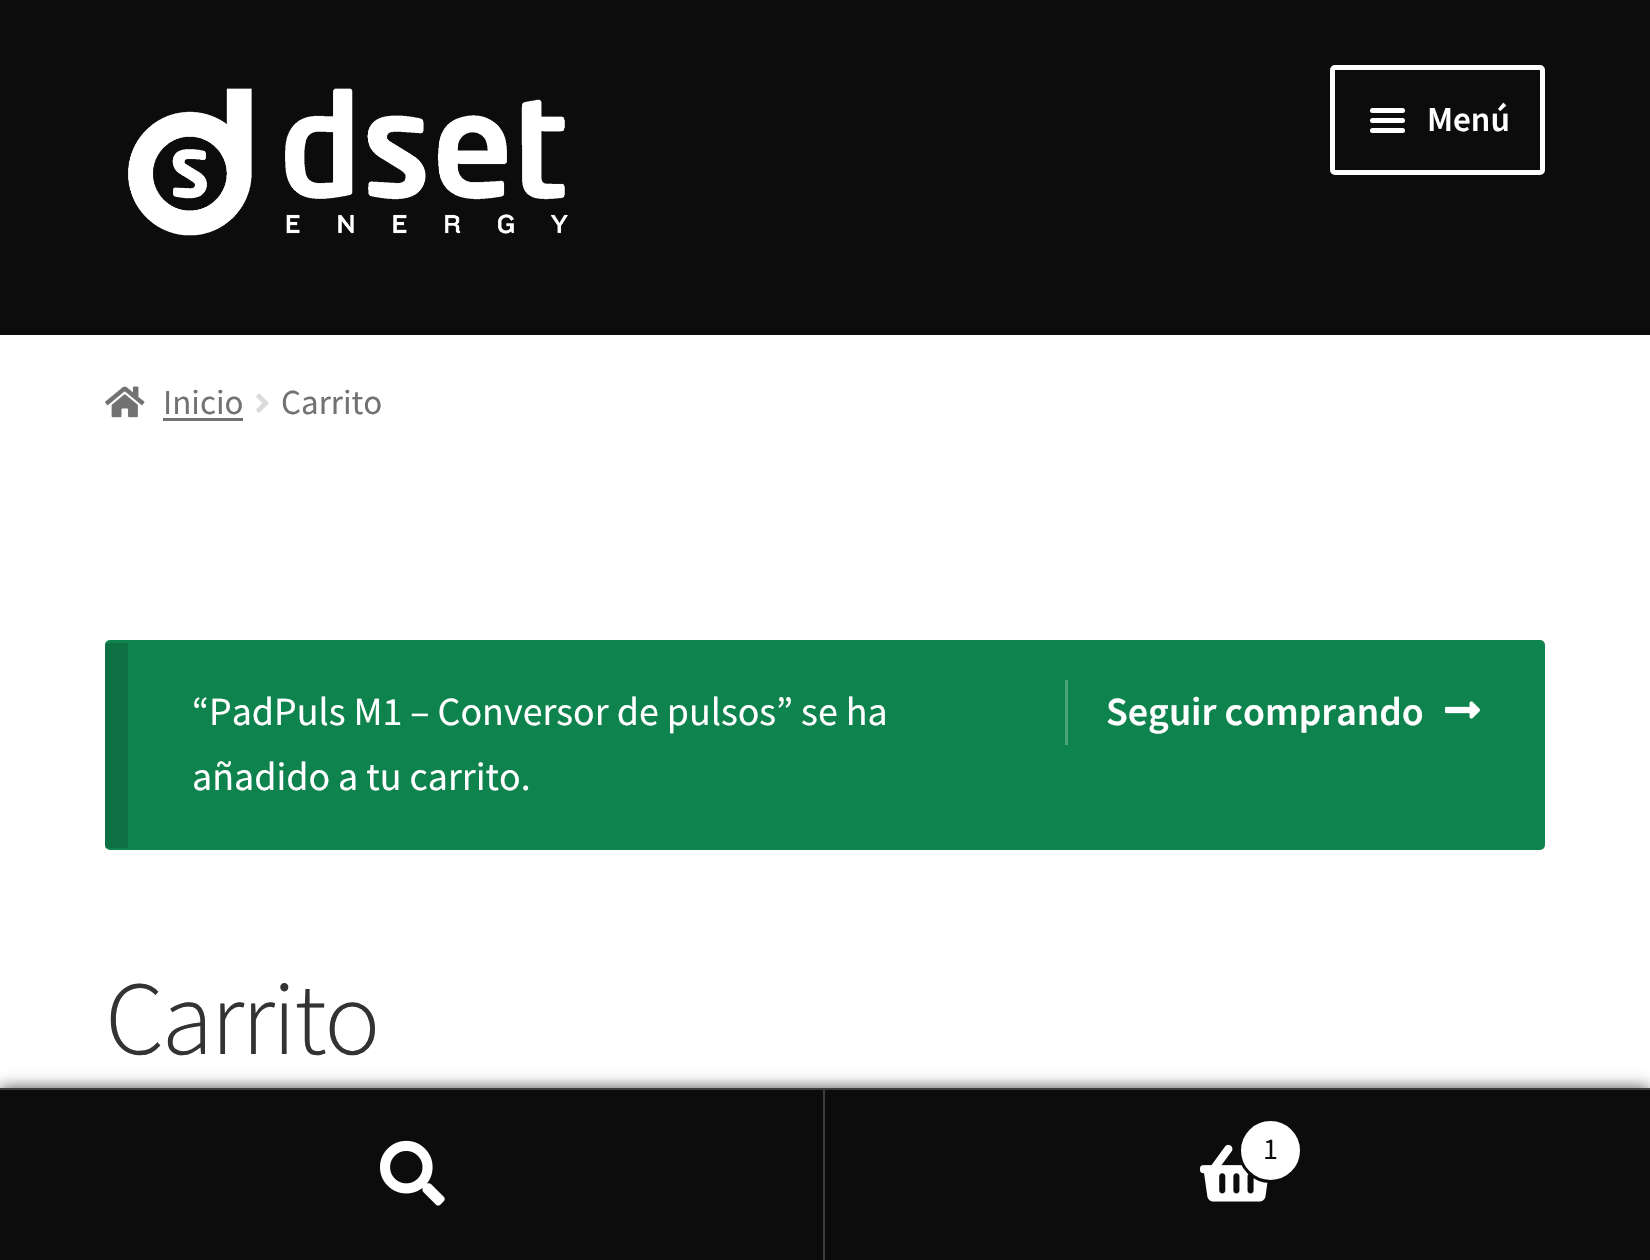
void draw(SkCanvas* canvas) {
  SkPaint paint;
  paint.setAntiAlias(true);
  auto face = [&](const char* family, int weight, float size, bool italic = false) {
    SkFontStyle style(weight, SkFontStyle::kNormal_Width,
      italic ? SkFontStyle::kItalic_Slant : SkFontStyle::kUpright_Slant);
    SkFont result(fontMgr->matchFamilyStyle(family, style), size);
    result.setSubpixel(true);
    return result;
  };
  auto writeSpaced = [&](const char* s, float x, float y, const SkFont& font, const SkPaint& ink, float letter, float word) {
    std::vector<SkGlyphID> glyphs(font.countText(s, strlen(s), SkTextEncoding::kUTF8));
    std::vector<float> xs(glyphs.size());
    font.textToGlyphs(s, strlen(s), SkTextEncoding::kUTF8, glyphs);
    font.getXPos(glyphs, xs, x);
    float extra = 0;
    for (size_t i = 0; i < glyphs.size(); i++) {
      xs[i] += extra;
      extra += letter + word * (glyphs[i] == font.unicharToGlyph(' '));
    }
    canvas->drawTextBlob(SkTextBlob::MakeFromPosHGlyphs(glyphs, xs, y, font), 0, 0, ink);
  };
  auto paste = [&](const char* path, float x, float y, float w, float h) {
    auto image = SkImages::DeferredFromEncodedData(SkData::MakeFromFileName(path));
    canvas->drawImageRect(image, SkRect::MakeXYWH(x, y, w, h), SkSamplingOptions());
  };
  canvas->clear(0xffffffff);
  paint.setColor(0xff0c0c0c);
  canvas->drawRect(SkRect::MakeXYWH(0, 0, 1650, 335), paint);
  paste("img/1.png", 128, 88, 440, 148);
  paint.setStroke(true);
  paint.setStrokeWidth(5);
  paint.setColor(0xffffffff);
  canvas->drawRoundRect(SkRect::MakeXYWH(1332.5f, 67.5f, 210, 105), 2.5f, 2.5f, paint);
  paint.setStroke(false);
  canvas->drawRoundRect(SkRect::MakeXYWH(1370, 108, 35, 5), 2.5f, 2.5f, paint);
  canvas->drawRoundRect(SkRect::MakeXYWH(1370, 118, 35, 5), 2.5f, 2.5f, paint);
  canvas->drawRoundRect(SkRect::MakeXYWH(1370, 128, 35, 5), 2.5f, 2.5f, paint);
  paste("img/2.png", 105, 386, 40, 32);
  paint.setColor(0xff727272);
  canvas->drawRect(SkRect::MakeXYWH(163, 418, 80, 3), paint);
  paste("img/3.png", 256, 393, 13, 20);
  paint.setColor(0xff0f834d);
  canvas->drawRoundRect(SkRect::MakeXYWH(105, 640, 1440, 210), 5, 5, paint);
  paint.setColor(0x26000000);
  canvas->drawRect(SkRect::MakeXYWH(105, 643, 23, 205), paint);
  paint.setColor(0xff4ba27a);
  canvas->drawRect(SkRect::MakeXYWH(1065, 680, 3, 65), paint);
  paste("img/4.png", 1445, 701, 35, 18);
  paint.setColor(0xb3000000);
  paint.setMaskFilter(SkMaskFilter::MakeBlur(kNormal_SkBlurStyle, 7.5f));
  canvas->drawRect(SkRect::MakeXYWH(0, 1088, 1650, 172), paint);
  paint.setMaskFilter(nullptr);
  {
    const struct { float x, y, w, h; SkColor color; } items[] = {
      {0, 1088, 1650, 2, 0xff3d3d3d},
      {0, 1090, 823, 170, 0xff0c0c0c},
      {823, 1090, 2, 170, 0xff3d3d3d},
    };
    for (auto [x, y, w, h, color] : items) {
      paint.setColor(color);
      canvas->drawRect(SkRect::MakeXYWH(x, y, w, h), paint);
    }
  }
  paste("img/5.png", 380, 1140, 65, 66);
  paint.setColor(0xff0c0c0c);
  canvas->drawRect(SkRect::MakeXYWH(825, 1090, 825, 170), paint);
  paste("img/6.png", 1200, 1144, 68, 58);
  paint.setColor(0xffffffff);
  canvas->drawCircle(1270.5f, 1150.5f, 31, paint);
  paint.setStroke(true);
  paint.setStrokeWidth(3);
  paint.setColor(0xff0c0c0c);
  canvas->drawCircle(1270.5f, 1150.5f, 31, paint);
  auto f0 = face("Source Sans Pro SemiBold", 600, 35);
  paint.setStroke(false);
  paint.setColor(0xffffffff);
  canvas->drawString("Menú", 1427, 131, f0, paint);
  auto f1 = face("Source Sans Pro", 400, 35);
  paint.setColor(0xff727272);
  canvas->drawString("Inicio", 163, 414, f1, paint);
  canvas->drawString("Carrito", 281, 414, f1, paint);
  auto f2 = face("Source Sans Pro", 400, 40);
  paint.setColor(0xffffffff);
  canvas->drawString("“PadPuls M1 – Conversor de pulsos” se ha", 192, 725, f2, paint);
  auto f3 = face("Source Sans Pro SemiBold", 600, 40);
  canvas->drawString("Seguir comprando", 1106, 725, f3, paint);
  canvas->drawString("añadido a tu carrito.", 192, 790, f2, paint);
  auto f4 = face("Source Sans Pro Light", 300, 105);
  paint.setColor(0xff333333);
  writeSpaced("Carrito", 105, 1054, f4, paint, -2.5f, 0);
  auto f5 = face("Source Sans Pro", 400, 30);
  paint.setColor(0xff0c0c0c);
  canvas->drawString("1", 1263, 1159, f5, paint);
}
